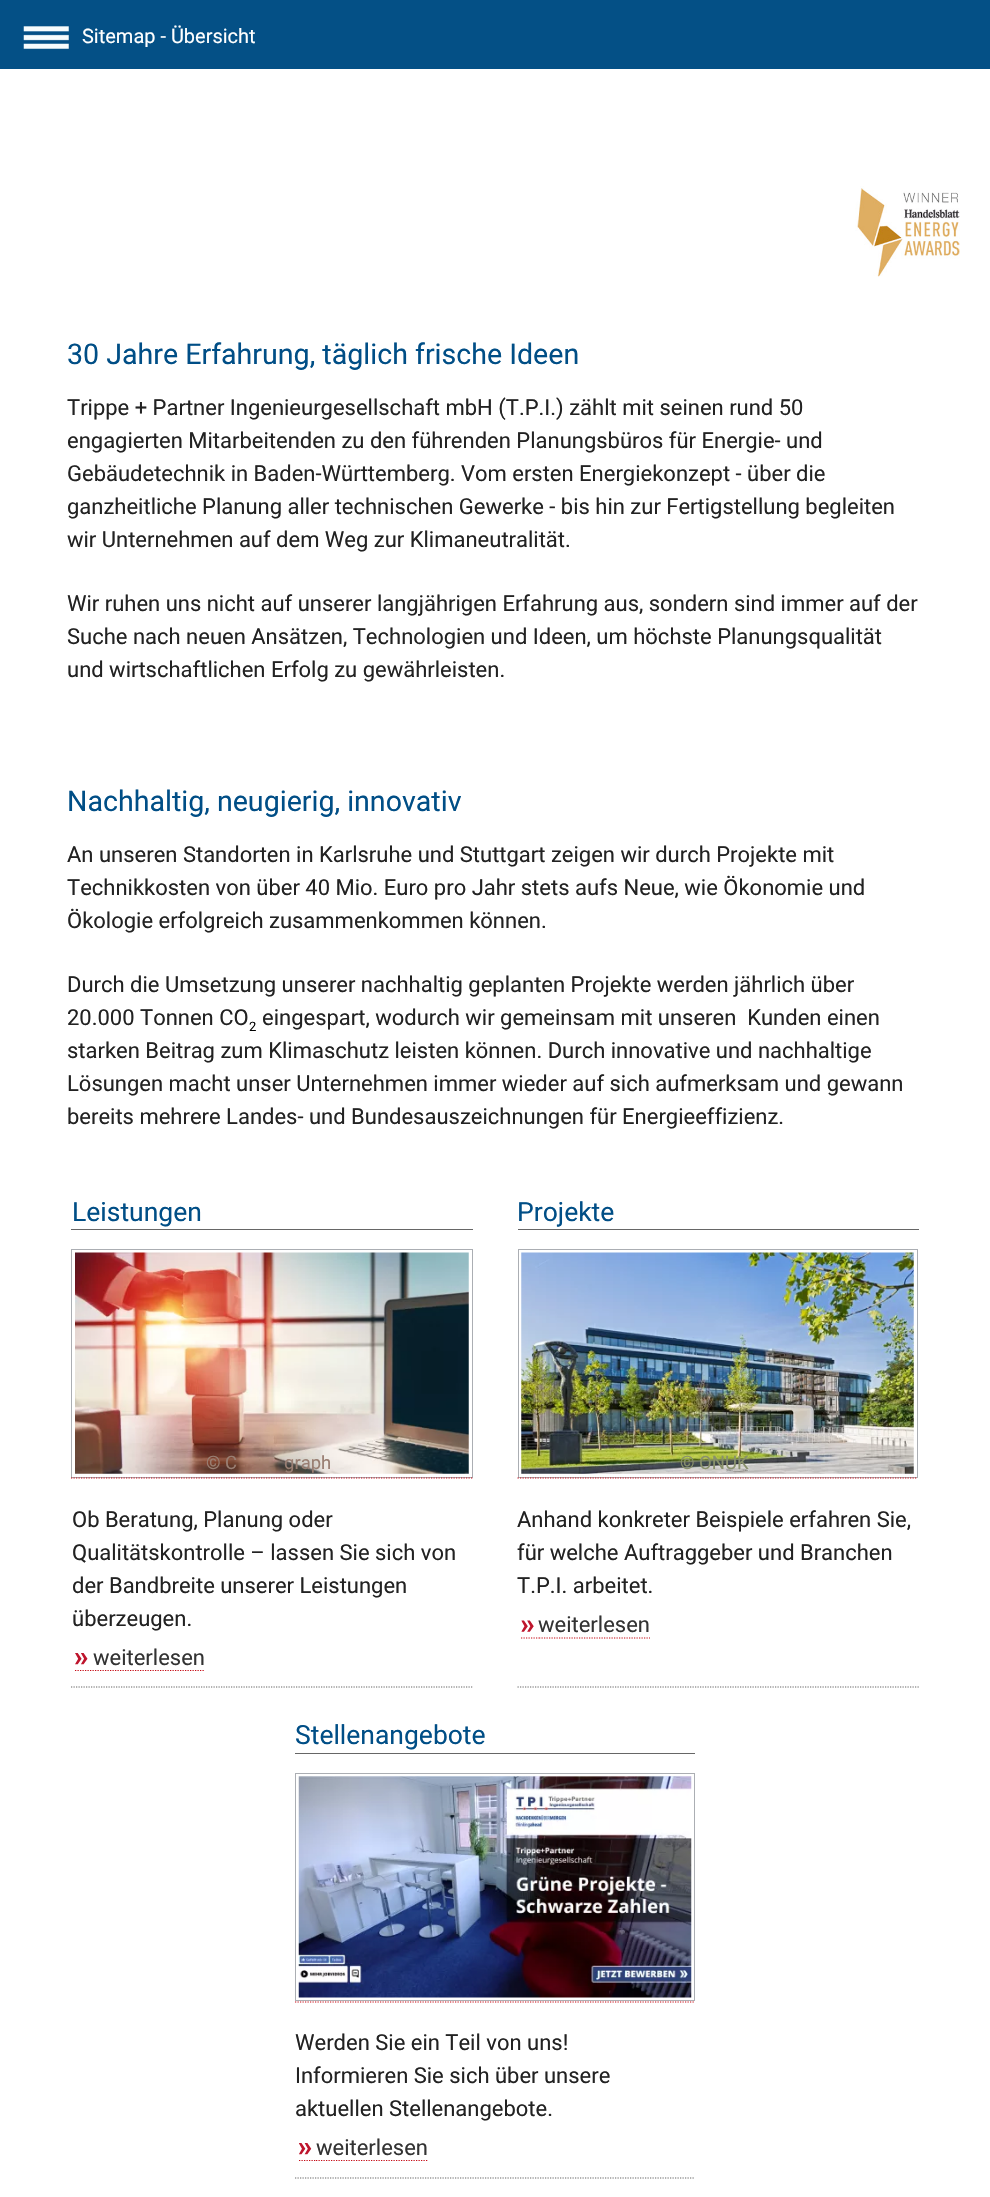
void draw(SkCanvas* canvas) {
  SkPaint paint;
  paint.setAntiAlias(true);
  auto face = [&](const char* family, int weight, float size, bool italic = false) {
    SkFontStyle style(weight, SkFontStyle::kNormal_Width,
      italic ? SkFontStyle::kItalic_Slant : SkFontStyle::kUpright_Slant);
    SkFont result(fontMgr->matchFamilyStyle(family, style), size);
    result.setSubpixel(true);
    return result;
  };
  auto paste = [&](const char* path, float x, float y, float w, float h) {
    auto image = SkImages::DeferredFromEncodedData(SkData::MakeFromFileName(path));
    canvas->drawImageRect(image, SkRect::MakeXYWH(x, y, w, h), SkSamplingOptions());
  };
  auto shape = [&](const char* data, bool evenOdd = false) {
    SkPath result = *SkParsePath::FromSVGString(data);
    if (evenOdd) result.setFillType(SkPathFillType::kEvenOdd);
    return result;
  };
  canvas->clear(0xffffffff);
  paint.setColor(0xff045086);
  canvas->drawRect(SkRect::MakeXYWH(0, 0, 990, 69), paint);
  paste("img/1.png", 23, 26, 46, 23);
  paste("img/2.png", 855, 186, 105, 91);
  paint.setStroke(true);
  paint.setStrokeWidth(1.2f);
  paint.setColor(0xff666666);
  paint.setPathEffect(SkDashPathEffect::Make({{1.25f, 1.25f}}, 0));
  canvas->drawPath(shape("M71 1687H472.5"), paint);
  paint.setPathEffect(nullptr);
  paint.setStroke(false);
  canvas->drawRect(SkRect::MakeXYWH(71, 1229, 402, 1), paint);
  paint.setStroke(true);
  paint.setStrokeWidth(1);
  paint.setColor(0xffabaeb3);
  canvas->drawRect(SkRect::MakeXYWH(71.5f, 1249.5f, 401, 228), paint);
  paint.setStrokeWidth(1.2f);
  paint.setColor(0xffc60914);
  paint.setPathEffect(SkDashPathEffect::Make({{1.25f, 1.25f}}, 0));
  canvas->drawPath(shape("M71 1478H472.5"), paint);
  paint.setPathEffect(nullptr);
  paste("img/3.png", 75, 1252, 394, 222);
  paste("img/4.png", 75, 1653, 13, 12);
  paint.setPathEffect(SkDashPathEffect::Make({{1.25f, 1.25f}}, 0));
  canvas->drawPath(shape("M75 1670.5H92.5"), paint);
  paint.setPathEffect(nullptr);
  paint.setPathEffect(SkDashPathEffect::Make({{1.25f, 1.25f}}, 0));
  canvas->drawPath(shape("M92.5 1670.5H205"), paint);
  paint.setPathEffect(nullptr);
  paint.setColor(0xff666666);
  paint.setPathEffect(SkDashPathEffect::Make({{1.25f, 1.25f}}, 0));
  canvas->drawPath(shape("M517.5 1687H919"), paint);
  paint.setPathEffect(nullptr);
  paint.setStroke(false);
  canvas->drawRect(SkRect::MakeXYWH(518, 1229, 401, 1), paint);
  paint.setStroke(true);
  paint.setStrokeWidth(1);
  paint.setColor(0xffabaeb3);
  canvas->drawRect(SkRect::MakeXYWH(518.5f, 1249.5f, 399, 228), paint);
  paint.setStrokeWidth(1.2f);
  paint.setColor(0xffc60914);
  paint.setPathEffect(SkDashPathEffect::Make({{1.25f, 1.25f}}, 0));
  canvas->drawPath(shape("M517.5 1478H917.5"), paint);
  paint.setPathEffect(nullptr);
  paste("img/5.png", 521, 1252, 393, 222);
  paste("img/6.png", 521, 1620, 13, 12);
  paint.setPathEffect(SkDashPathEffect::Make({{1.25f, 1.25f}}, 0));
  canvas->drawPath(shape("M521 1638H539"), paint);
  paint.setPathEffect(nullptr);
  paint.setPathEffect(SkDashPathEffect::Make({{1.25f, 1.25f}}, 0));
  canvas->drawPath(shape("M539 1638H650"), paint);
  paint.setPathEffect(nullptr);
  paint.setColor(0xff666666);
  paint.setPathEffect(SkDashPathEffect::Make({{1.25f, 1.25f}}, 0));
  canvas->drawPath(shape("M295 2178H695"), paint);
  paint.setPathEffect(nullptr);
  paint.setStroke(false);
  canvas->drawRect(SkRect::MakeXYWH(295, 1753, 400, 1), paint);
  paint.setStroke(true);
  paint.setColor(0xffc60914);
  paint.setPathEffect(SkDashPathEffect::Make({{1.25f, 1.25f}}, 0));
  canvas->drawPath(shape("M295 2002H695"), paint);
  paint.setPathEffect(nullptr);
  paint.setStrokeWidth(1);
  paint.setColor(0xffabaeb3);
  canvas->drawRect(SkRect::MakeXYWH(295.5f, 1773.5f, 399, 227), paint);
  paste("img/7.png", 298, 1776, 394, 222);
  paste("img/8.png", 299, 2143, 13, 12);
  paint.setStrokeWidth(1.2f);
  paint.setColor(0xffc60914);
  paint.setPathEffect(SkDashPathEffect::Make({{1.25f, 1.25f}}, 0));
  canvas->drawPath(shape("M299 2160.5H316"), paint);
  paint.setPathEffect(nullptr);
  paint.setPathEffect(SkDashPathEffect::Make({{1.25f, 1.25f}}, 0));
  canvas->drawPath(shape("M316 2160.5H427.5"), paint);
  paint.setPathEffect(nullptr);
  auto f0 = face("Roboto", 400, 20);
  paint.setStroke(false);
  paint.setColor(0xffffffff);
  canvas->drawString("Sitemap - Übersicht", 82, 43, f0, paint);
  auto f1 = face("Roboto", 400, 28.6f);
  paint.setColor(0xff004e86);
  canvas->drawString("30 Jahre Erfahrung, täglich frische Ideen", 67, 364, f1, paint);
  auto f2 = face("Roboto", 400, 22);
  paint.setColor(0xff222222);
  {
    const struct { const char* s; float x, y; } items[] = {
      {"Trippe + Partner Ingenieurgesellschaft mbH (T.P.I.) zählt mit seinen rund 50", 67, 415},
      {"engagierten Mitarbeitenden zu den führenden Planungsbüros für Energie- und", 67, 448},
      {"Gebäudetechnik in Baden-Württemberg. Vom ersten Energiekonzept - über die", 67, 481},
      {"ganzheitliche Planung aller technischen Gewerke - bis hin zur Fertigstellung begleiten", 67, 514},
      {"wir Unternehmen auf dem Weg zur Klimaneutralität.", 67, 547},
      {"Wir ruhen uns nicht auf unserer langjährigen Erfahrung aus, sondern sind immer auf der", 67, 611},
      {"Suche nach neuen Ansätzen, Technologien und Ideen, um höchste Planungsqualität", 67, 644},
      {"und wirtschaftlichen Erfolg zu gewährleisten.", 67, 677},
    };
    for (auto [s, x, y] : items) {
      canvas->drawString(s, x, y, f2, paint);
    }
  }
  paint.setColor(0xff004e86);
  canvas->drawString("Nachhaltig, neugierig, innovativ", 67, 811, f1, paint);
  paint.setColor(0xff222222);
  {
    const struct { const char* s; float x, y; } items[] = {
      {"An unseren Standorten in Karlsruhe und Stuttgart zeigen wir durch Projekte mit", 67, 862},
      {"Technikkosten von über 40 Mio. Euro pro Jahr stets aufs Neue, wie Ökonomie und", 67, 895},
      {"Ökologie erfolgreich zusammenkommen können.", 67, 928},
      {"Durch die Umsetzung unserer nachhaltig geplanten Projekte werden jährlich über", 67, 992},
      {"20.000 Tonnen CO", 67, 1025},
    };
    for (auto [s, x, y] : items) {
      canvas->drawString(s, x, y, f2, paint);
    }
  }
  auto f3 = face("Roboto", 400, 13);
  paint.setColor(0xff000000);
  canvas->drawString("2", 249, 1031, f3, paint);
  paint.setColor(0xff222222);
  {
    const struct { const char* s; float x, y; } items[] = {
      {"eingespart, wodurch wir gemeinsam mit unseren  Kunden einen", 262, 1025},
      {"starken Beitrag zum Klimaschutz leisten können. Durch innovative und nachhaltige", 67, 1058},
      {"Lösungen macht unser Unternehmen immer wieder auf sich aufmerksam und gewann", 67, 1091},
      {"bereits mehrere Landes- und Bundesauszeichnungen für Energieeffizienz.", 67, 1124},
    };
    for (auto [s, x, y] : items) {
      canvas->drawString(s, x, y, f2, paint);
    }
  }
  auto f4 = face("Roboto", 400, 26.5f);
  paint.setColor(0xff004e86);
  canvas->drawString("Leistungen", 72, 1221, f4, paint);
  auto f5 = face("Roboto", 400, 18.5f);
  paint.setColor(0xff997e72);
  canvas->drawString("© C", 206, 1469, f5, paint);
  canvas->drawString("graph", 284, 1469, f5, paint);
  paint.setColor(0xff222222);
  {
    const struct { const char* s; float x, y; } items[] = {
      {"Ob Beratung, Planung oder", 72, 1527},
      {"Qualitätskontrolle – lassen Sie sich von", 72, 1560},
      {"der Bandbreite unserer Leistungen", 72, 1593},
      {"überzeugen.", 72, 1626},
    };
    for (auto [s, x, y] : items) {
      canvas->drawString(s, x, y, f2, paint);
    }
  }
  paint.setColor(0xff333333);
  canvas->drawString("weiterlesen", 93, 1665, f2, paint);
  paint.setColor(0xff004e86);
  canvas->drawString("Projekte", 517, 1221, f4, paint);
  paint.setColor(0xff89916b);
  canvas->drawString("© ONUK", 680, 1469, f5, paint);
  paint.setColor(0xff222222);
  {
    const struct { const char* s; float x, y; } items[] = {
      {"Anhand konkreter Beispiele erfahren Sie,", 517, 1527},
      {"für welche Auftraggeber und Branchen", 517, 1560},
      {"T.P.I. arbeitet.", 517, 1593},
    };
    for (auto [s, x, y] : items) {
      canvas->drawString(s, x, y, f2, paint);
    }
  }
  paint.setColor(0xff333333);
  canvas->drawString("weiterlesen", 538, 1632, f2, paint);
  paint.setColor(0xff004e86);
  canvas->drawString("Stellenangebote", 295, 1744, f4, paint);
  paint.setColor(0xff222222);
  {
    const struct { const char* s; float x, y; } items[] = {
      {"Werden Sie ein Teil von uns!", 295, 2050},
      {"Informieren Sie sich über unsere", 295, 2083},
      {"aktuellen Stellenangebote.", 295, 2116},
    };
    for (auto [s, x, y] : items) {
      canvas->drawString(s, x, y, f2, paint);
    }
  }
  paint.setColor(0xff333333);
  canvas->drawString("weiterlesen", 316, 2155, f2, paint);
}
